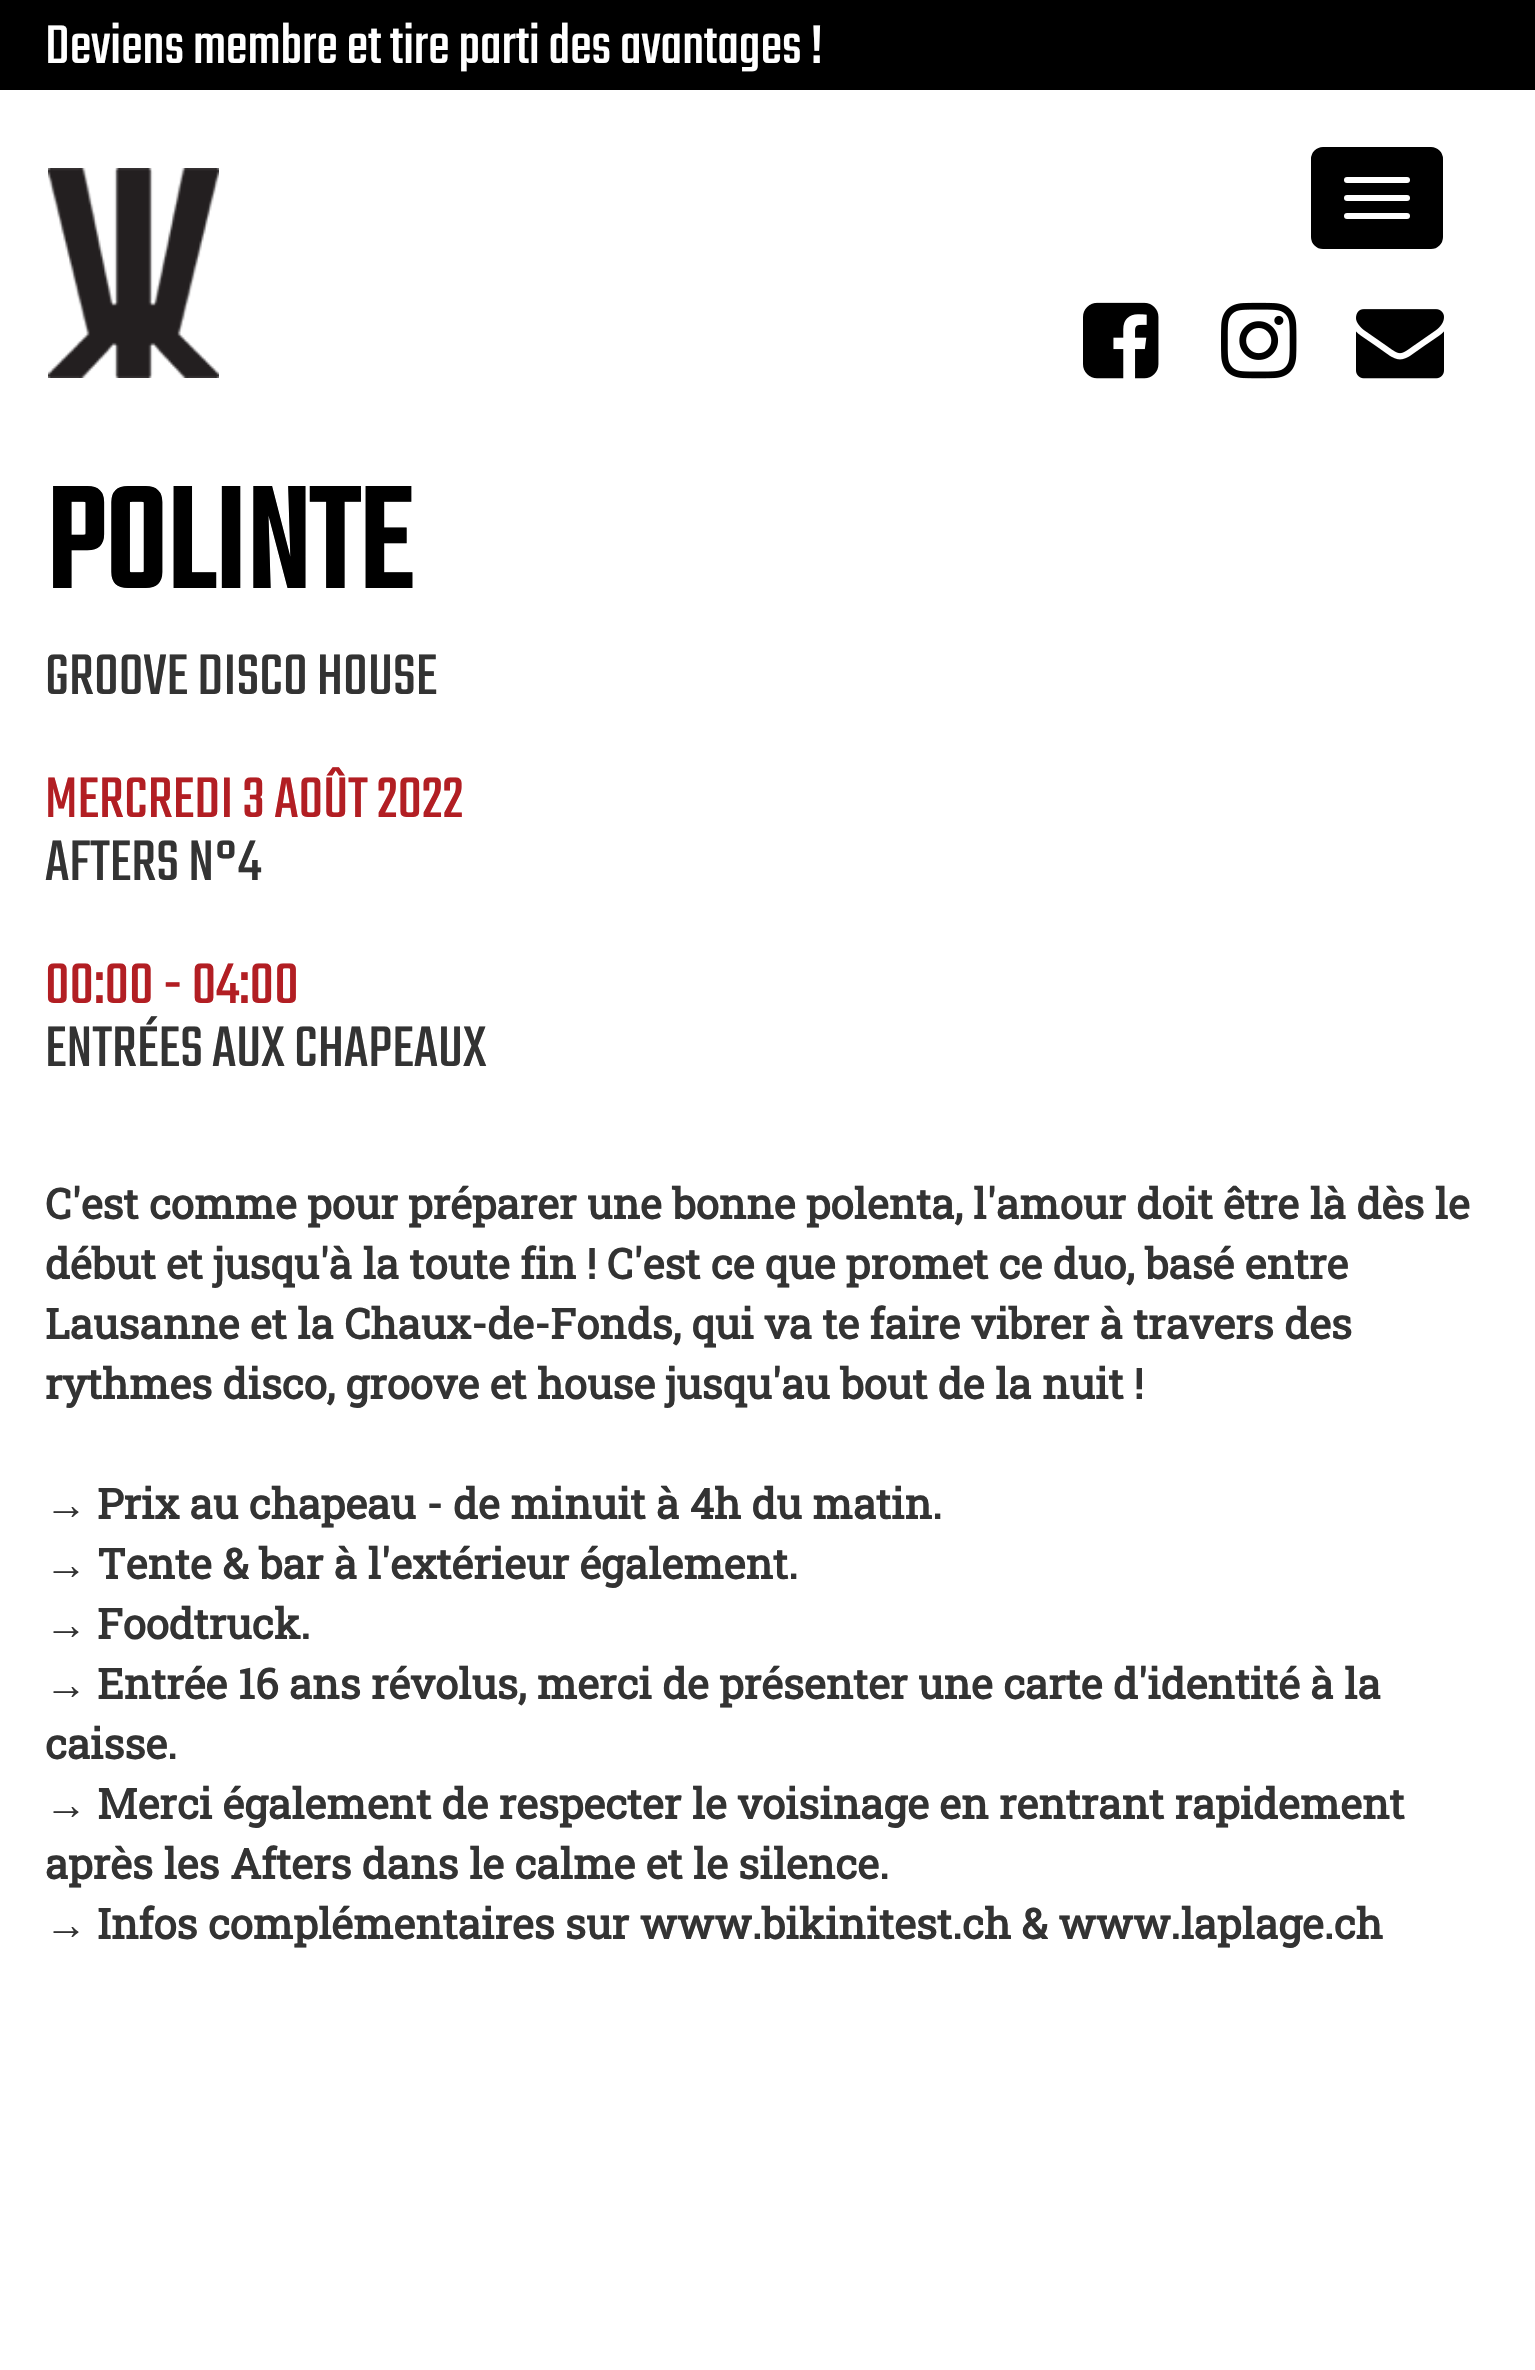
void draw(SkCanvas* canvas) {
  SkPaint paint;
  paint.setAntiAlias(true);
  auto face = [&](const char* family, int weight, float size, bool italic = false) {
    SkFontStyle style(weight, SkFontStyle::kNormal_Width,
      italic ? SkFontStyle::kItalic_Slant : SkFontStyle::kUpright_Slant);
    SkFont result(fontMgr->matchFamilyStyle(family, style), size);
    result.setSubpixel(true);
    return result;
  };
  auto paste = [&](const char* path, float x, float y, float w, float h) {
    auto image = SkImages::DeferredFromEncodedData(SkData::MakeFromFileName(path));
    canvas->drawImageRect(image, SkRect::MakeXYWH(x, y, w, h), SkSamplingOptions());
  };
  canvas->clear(0xffffffff);
  paint.setColor(0xff000000);
  canvas->drawRect(SkRect::MakeXYWH(0, 0, 1535, 90), paint);
  paste("img/1.png", 48, 168, 171, 210);
  canvas->drawRoundRect(SkRect::MakeXYWH(1312.5f, 148.5f, 129, 99), 10.5f, 10.5f, paint);
  paint.setStroke(true);
  paint.setStrokeWidth(3);
  canvas->drawRoundRect(SkRect::MakeXYWH(1312.5f, 148.5f, 129, 99), 10.5f, 10.5f, paint);
  paint.setStroke(false);
  paint.setColor(0xffffffff);
  canvas->drawRoundRect(SkRect::MakeXYWH(1344, 177, 66, 6), 3, 3, paint);
  canvas->drawRoundRect(SkRect::MakeXYWH(1344, 195, 66, 6), 3, 3, paint);
  canvas->drawRoundRect(SkRect::MakeXYWH(1344, 213, 66, 6), 3, 3, paint);
  paste("img/2.png", 1083, 302, 76, 77);
  paste("img/3.png", 1221, 302, 76, 77);
  paste("img/4.png", 1356, 309, 88, 70);
  auto f0 = face("Teko", 300, 60);
  canvas->drawString("Deviens membre et tire parti des avantages !", 45, 63, f0, paint);
  auto f1 = face("Teko", 700, 156);
  paint.setColor(0xff000000);
  canvas->drawString("POLINTE", 45, 588, f1, paint);
  auto f2 = face("Teko", 300, 63);
  paint.setColor(0xff333333);
  canvas->drawString("GROOVE DISCO HOUSE", 45, 694, f2, paint);
  paint.setColor(0xffb21e23);
  canvas->drawString("MERCREDI 3 AOÛT 2022", 45, 817, f2, paint);
  paint.setColor(0xff333333);
  canvas->drawString("AFTERS N°4", 45, 880, f2, paint);
  paint.setColor(0xffb21e23);
  canvas->drawString("00:00 - 04:00", 45, 1003, f2, paint);
  paint.setColor(0xff333333);
  canvas->drawString("ENTRÉES AUX CHAPEAUX", 45, 1066, f2, paint);
  auto f3 = face("Roboto Slab", 700, 42);
  {
    const struct { const char* s; float x, y; } items[] = {
      {"C'est comme pour préparer une bonne polenta, l'amour doit être là dès le", 45, 1219},
      {"début et jusqu'à la toute fin ! C'est ce que promet ce duo, basé entre", 45, 1279},
      {"Lausanne et la Chaux-de-Fonds, qui va te faire vibrer à travers des", 45, 1339},
      {"rythmes disco, groove et house jusqu'au bout de la nuit !", 45, 1399},
    };
    for (auto [s, x, y] : items) {
      canvas->drawString(s, x, y, f3, paint);
    }
  }
  auto f4 = face("Liberation Serif", 700, 42);
  canvas->drawString("→", 45, 1519, f4, paint);
  canvas->drawString("Prix au chapeau - de minuit à 4h du matin.", 97, 1519, f3, paint);
  canvas->drawString("→", 45, 1579, f4, paint);
  canvas->drawString("Tente & bar à l'extérieur également.", 97, 1579, f3, paint);
  canvas->drawString("→", 45, 1639, f4, paint);
  canvas->drawString("Foodtruck.", 97, 1639, f3, paint);
  canvas->drawString("→", 45, 1699, f4, paint);
  canvas->drawString("Entrée 16 ans révolus, merci de présenter une carte d'identité à la", 97, 1699, f3, paint);
  canvas->drawString("caisse.", 45, 1759, f3, paint);
  canvas->drawString("→", 45, 1819, f4, paint);
  canvas->drawString("Merci également de respecter le voisinage en rentrant rapidement", 97, 1819, f3, paint);
  canvas->drawString("après les Afters dans le calme et le silence.", 45, 1879, f3, paint);
  canvas->drawString("→", 45, 1939, f4, paint);
  canvas->drawString("Infos complémentaires sur www.bikinitest.ch & www.laplage.ch", 97, 1939, f3, paint);
}
